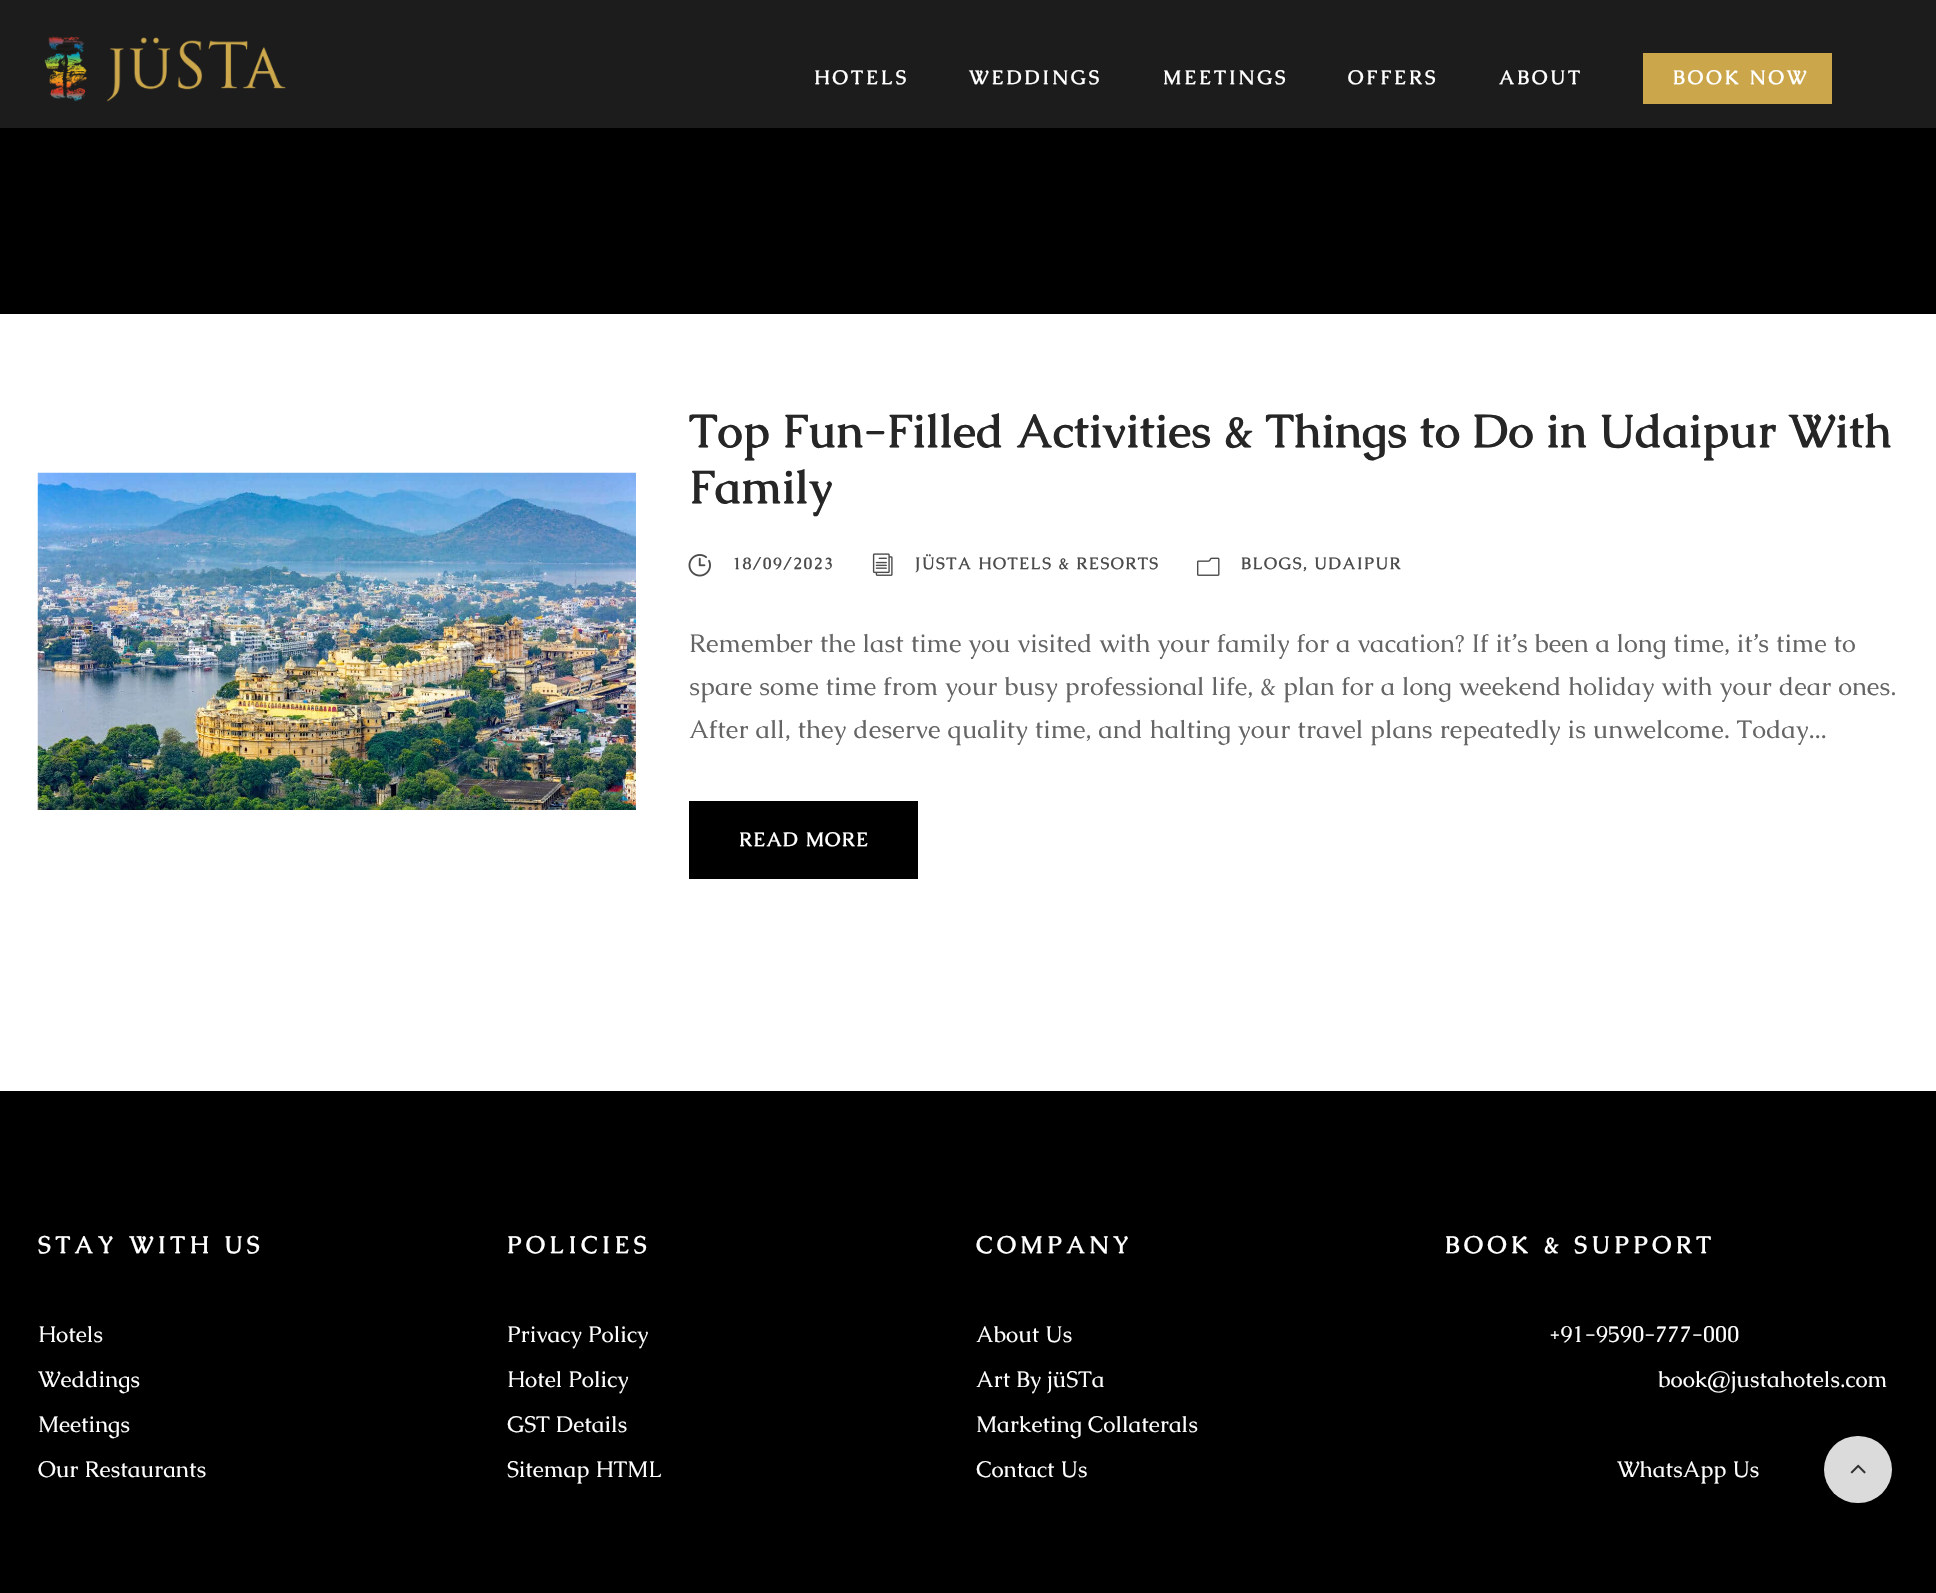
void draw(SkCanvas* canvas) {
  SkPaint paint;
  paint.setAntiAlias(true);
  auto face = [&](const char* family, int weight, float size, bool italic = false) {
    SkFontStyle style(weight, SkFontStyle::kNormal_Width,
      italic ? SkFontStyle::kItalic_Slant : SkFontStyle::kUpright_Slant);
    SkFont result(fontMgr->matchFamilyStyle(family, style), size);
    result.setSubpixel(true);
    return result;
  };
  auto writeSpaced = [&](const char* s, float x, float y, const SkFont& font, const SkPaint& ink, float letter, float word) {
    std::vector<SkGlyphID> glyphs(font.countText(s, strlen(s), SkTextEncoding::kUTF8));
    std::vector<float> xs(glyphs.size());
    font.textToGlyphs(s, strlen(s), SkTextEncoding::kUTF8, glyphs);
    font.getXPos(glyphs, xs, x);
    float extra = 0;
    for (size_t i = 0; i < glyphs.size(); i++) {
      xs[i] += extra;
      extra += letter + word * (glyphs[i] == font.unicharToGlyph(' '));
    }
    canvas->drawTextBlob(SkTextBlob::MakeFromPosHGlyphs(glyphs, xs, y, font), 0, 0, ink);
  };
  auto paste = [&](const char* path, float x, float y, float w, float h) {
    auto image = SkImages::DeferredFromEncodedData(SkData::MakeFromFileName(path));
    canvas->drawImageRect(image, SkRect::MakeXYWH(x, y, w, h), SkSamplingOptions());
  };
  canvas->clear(0xffffffff);
  paint.setColor(0xff1c1c1c);
  canvas->drawRect(SkRect::MakeXYWH(0, 0, 1936, 128), paint);
  paste("img/1.png", 44, 36, 242, 66);
  paint.setColor(0xffcca64b);
  canvas->drawRect(SkRect::MakeXYWH(1643, 53, 189, 51), paint);
  paint.setColor(0xff000000);
  canvas->drawRect(SkRect::MakeXYWH(0, 128, 1936, 186), paint);
  paste("img/2.png", 37, 472, 599, 338);
  paste("img/3.png", 688, 554, 23, 23);
  paste("img/4.png", 872, 553, 21, 23);
  paste("img/5.png", 1197, 557, 23, 19);
  canvas->drawRect(SkRect::MakeXYWH(689, 801, 229, 78), paint);
  canvas->drawRect(SkRect::MakeXYWH(0, 1091, 1936, 502), paint);
  paint.setColor(0xffdbdbdb);
  canvas->drawRoundRect(SkRect::MakeXYWH(1824, 1436, 68, 67), 33.5f, 33.5f, paint);
  paste("img/6.png", 1850, 1464, 16, 10);
  auto f0 = face("Caudex", 700, 19.5f);
  paint.setColor(0xffffffff);
  {
    const struct { const char* s; float x, y; } items[] = {
      {"HOTELS", 814, 84},
      {"WEDDINGS", 969, 84},
      {"MEETINGS", 1163, 84},
      {"OFFERS", 1348, 84},
      {"ABOUT", 1499, 84},
      {"BOOK NOW", 1673, 84},
    };
    for (auto [s, x, y] : items) {
      writeSpaced(s, x, y, f0, paint, 3, 0);
    }
  }
  auto f1 = face("Caudex", 700, 46.5f);
  paint.setColor(0xff262626);
  canvas->drawString("Top Fun-Filled Activities & Things to Do in Udaipur With", 689, 447, f1, paint);
  canvas->drawString("Family", 689, 503, f1, paint);
  auto f2 = face("Caudex", 700, 16.5f);
  paint.setColor(0xff4c4c4c);
  {
    const struct { const char* s; float x, y; } items[] = {
      {"18/09/2023", 733, 569},
      {"JÜSTA HOTELS & RESORTS", 915, 569},
      {"BLOGS, UDAIPUR", 1241, 569},
    };
    for (auto [s, x, y] : items) {
      writeSpaced(s, x, y, f2, paint, 1.5f, 0);
    }
  }
  auto f3 = face("Caudex", 400, 25.5f);
  paint.setColor(0xff656565);
  {
    const struct { const char* s; float x, y; } items[] = {
      {"Remember the last time you visited with your family for a vacation? If it’s been a long time, it’s time to", 689, 652},
      {"spare some time from your busy professional life, & plan for a long weekend holiday with your dear ones.", 689, 695},
      {"After all, they deserve quality time, and halting your travel plans repeatedly is unwelcome. Today...", 689, 738},
    };
    for (auto [s, x, y] : items) {
      canvas->drawString(s, x, y, f3, paint);
    }
  }
  paint.setColor(0xffffffff);
  writeSpaced("READ MORE", 739, 846, f0, paint, 1.25f, 0);
  auto f4 = face("Caudex", 700, 24);
  writeSpaced("STAY WITH US", 38, 1253, f4, paint, 4.5f, 0);
  auto f5 = face("Caudex", 400, 22.5f);
  {
    const struct { const char* s; float x, y; } items[] = {
      {"Hotels", 38, 1342},
      {"Weddings", 38, 1387},
      {"Meetings", 38, 1432},
      {"Our Restaurants", 38, 1477},
    };
    for (auto [s, x, y] : items) {
      canvas->drawString(s, x, y, f5, paint);
    }
  }
  writeSpaced("POLICIES", 507, 1253, f4, paint, 4.5f, 0);
  {
    const struct { const char* s; float x, y; } items[] = {
      {"Privacy Policy", 507, 1342},
      {"Hotel Policy", 507, 1387},
      {"GST Details", 507, 1432},
      {"Sitemap HTML", 507, 1477},
    };
    for (auto [s, x, y] : items) {
      canvas->drawString(s, x, y, f5, paint);
    }
  }
  writeSpaced("COMPANY", 976, 1253, f4, paint, 4.5f, 0);
  {
    const struct { const char* s; float x, y; } items[] = {
      {"About Us", 976, 1342},
      {"Art By jüSTa", 976, 1387},
      {"Marketing Collaterals", 976, 1432},
      {"Contact Us", 976, 1477},
    };
    for (auto [s, x, y] : items) {
      canvas->drawString(s, x, y, f5, paint);
    }
  }
  writeSpaced("BOOK & SUPPORT", 1445, 1253, f4, paint, 4.5f, 0);
  {
    const struct { const char* s; float x, y; } items[] = {
      {"+91-9590-777-000", 1549, 1342},
      {"book@justahotels.com", 1658, 1387},
      {"WhatsApp Us", 1617, 1477},
    };
    for (auto [s, x, y] : items) {
      canvas->drawString(s, x, y, f5, paint);
    }
  }
}
